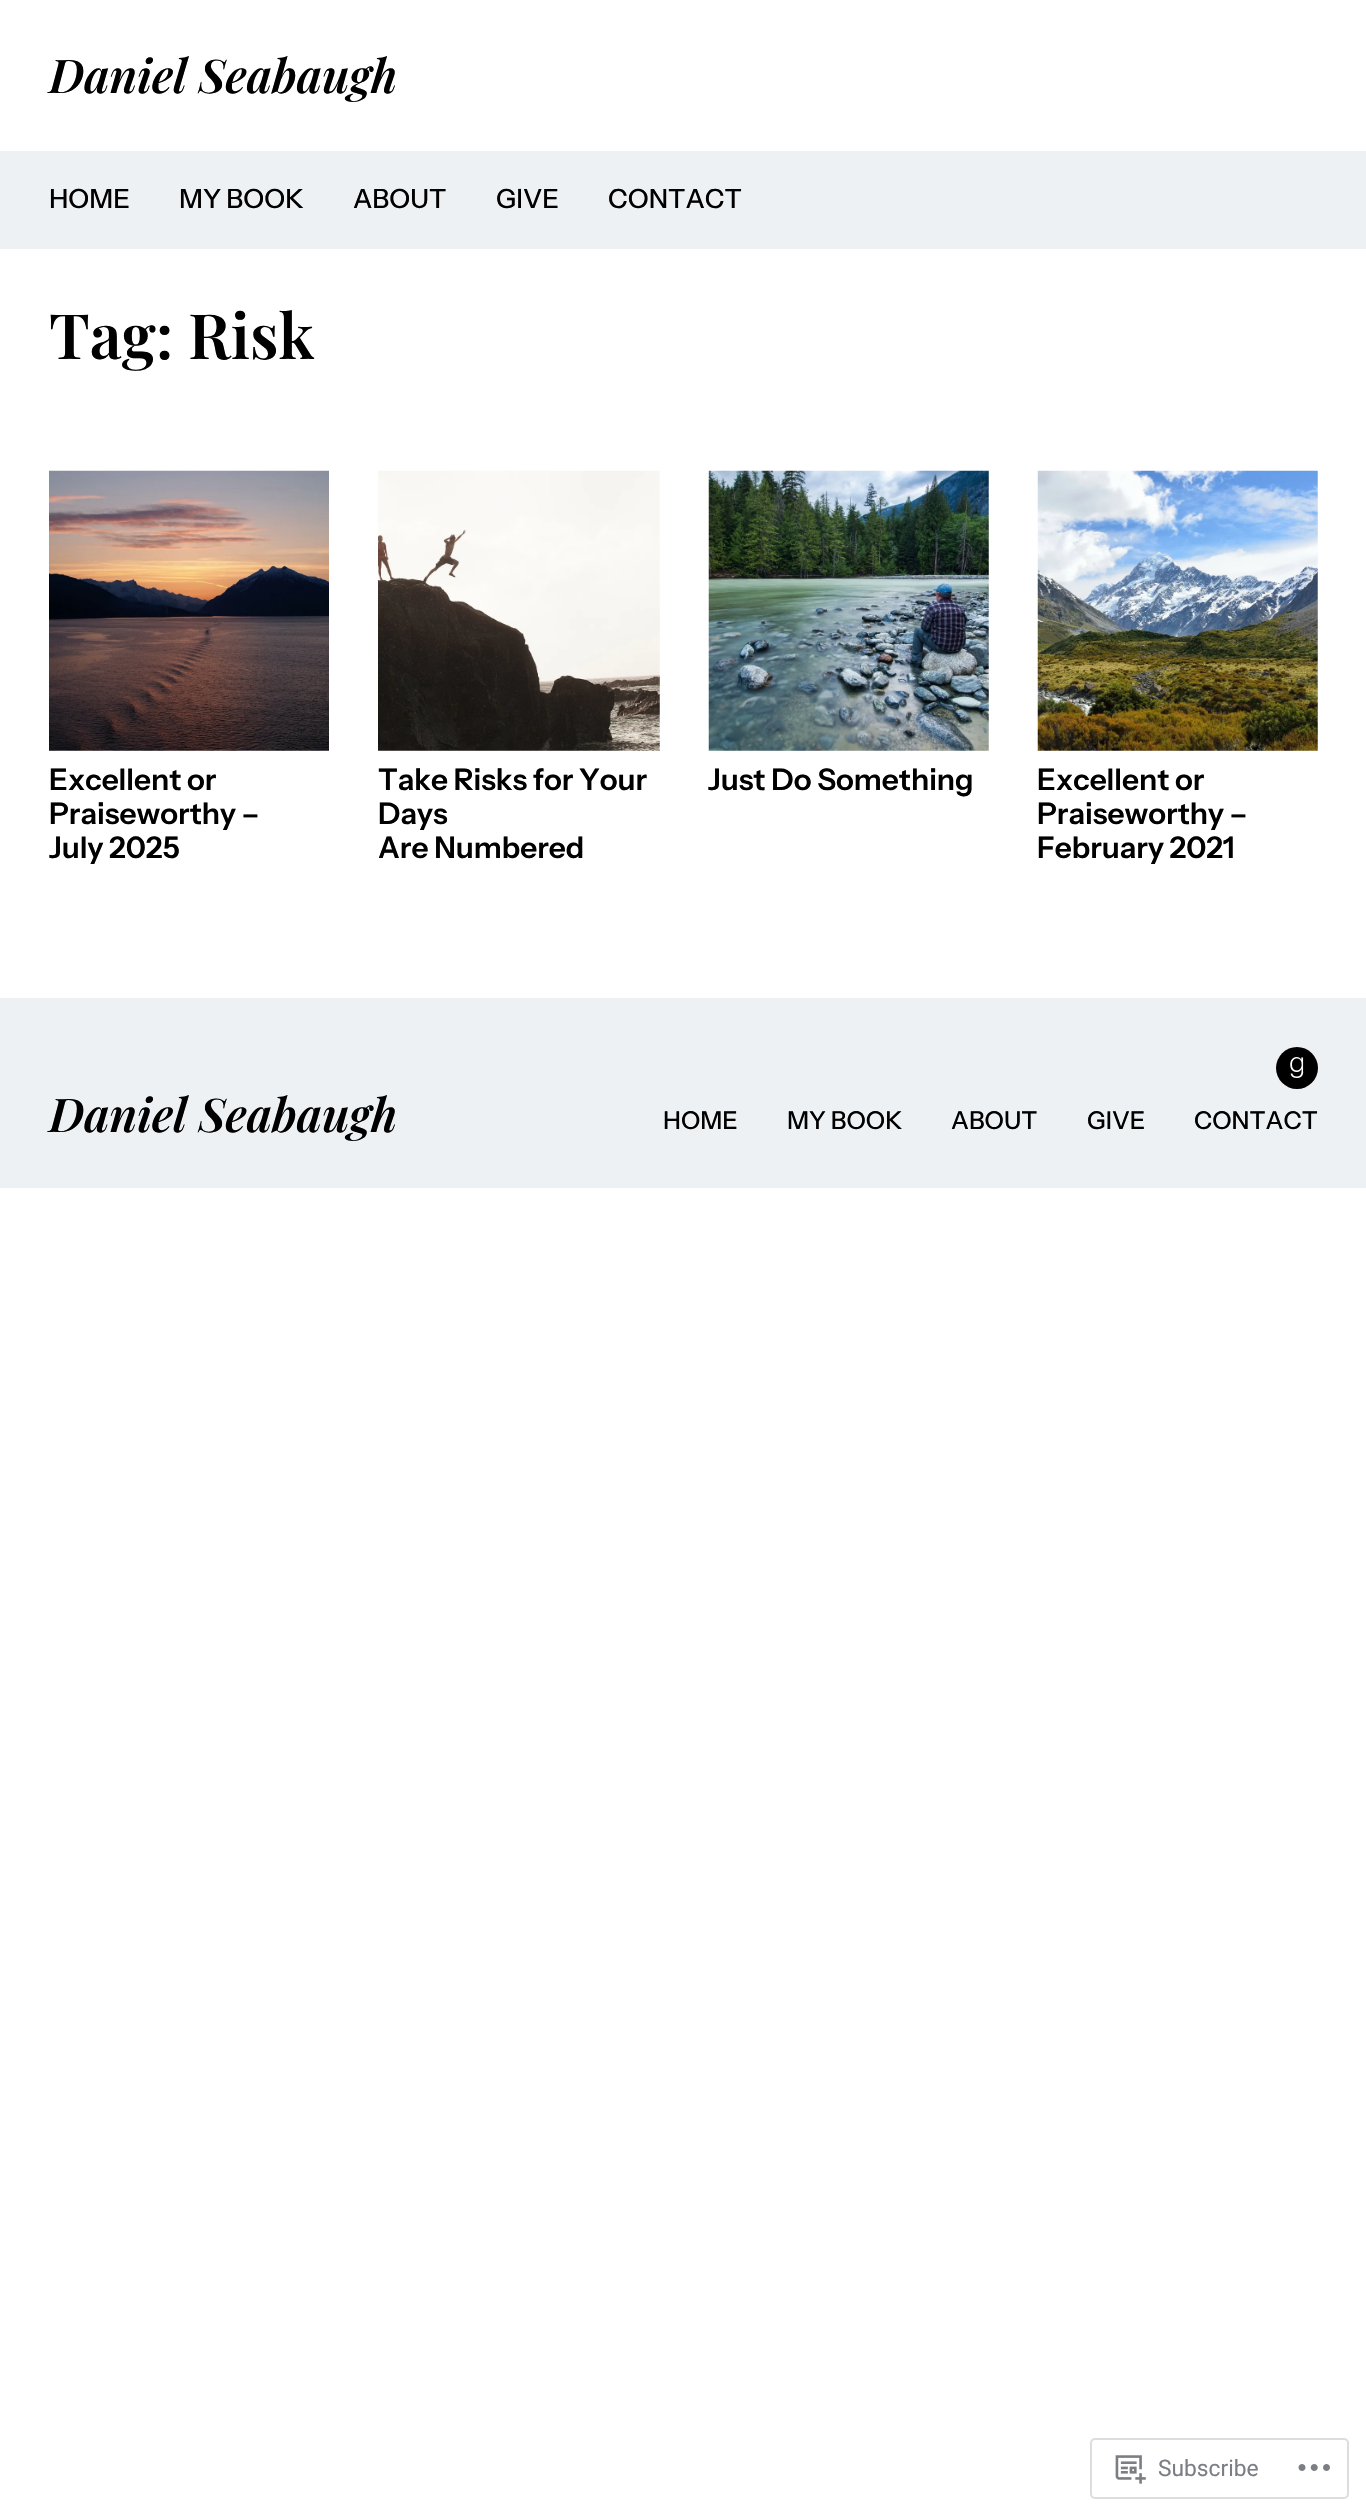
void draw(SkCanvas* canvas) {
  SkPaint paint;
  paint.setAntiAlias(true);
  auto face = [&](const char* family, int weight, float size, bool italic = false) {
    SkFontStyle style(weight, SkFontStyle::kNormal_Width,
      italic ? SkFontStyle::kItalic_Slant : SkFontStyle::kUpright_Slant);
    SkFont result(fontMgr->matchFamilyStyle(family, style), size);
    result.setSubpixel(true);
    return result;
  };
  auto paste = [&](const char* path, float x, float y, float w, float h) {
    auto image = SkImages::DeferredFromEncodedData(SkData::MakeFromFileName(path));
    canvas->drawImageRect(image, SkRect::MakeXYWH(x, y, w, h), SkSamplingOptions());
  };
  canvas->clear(0xffffffff);
  paint.setColor(0xffedf1f4);
  canvas->drawRect(SkRect::MakeXYWH(0, 151, 1366, 98), paint);
  paste("img/1.png", 49, 470, 280, 281);
  paste("img/2.png", 378, 470, 282, 281);
  paste("img/3.png", 708, 470, 281, 281);
  paste("img/4.png", 1037, 470, 281, 281);
  canvas->drawRect(SkRect::MakeXYWH(0, 998, 1366, 190), paint);
  paint.setColor(0xff000000);
  canvas->drawCircle(1297, 1068, 21, paint);
  paste("img/5.png", 1290, 1057, 14, 21);
  paint.setStroke(true);
  paint.setStrokeWidth(2);
  paint.setColor(0xffdddddf);
  canvas->drawRoundRect(SkRect::MakeXYWH(1091, 2439, 257, 59), 4, 4, paint);
  paste("img/6.png", 1115, 2455, 31, 29);
  paste("img/7.png", 1298, 2464, 32, 7);
  auto f0 = face("Playfair Display", 600, 46.5f, true);
  paint.setStroke(false);
  paint.setColor(0xff000000);
  canvas->drawString("Daniel Seabaugh", 49, 93, f0, paint);
  auto f1 = face("Instrument Sans", 500, 26.5f);
  {
    const struct { const char* s; float x, y; } items[] = {
      {"HOME", 49, 208},
      {"MY BOOK", 179, 208},
      {"ABOUT", 353, 208},
      {"GIVE", 496, 208},
      {"CONTACT", 608, 208},
    };
    for (auto [s, x, y] : items) {
      canvas->drawString(s, x, y, f1, paint);
    }
  }
  auto f2 = face("Playfair Display", 600, 62.5f);
  canvas->drawString("Tag: Risk", 49, 359, f2, paint);
  auto f3 = face("Instrument Sans", 600, 29.75f);
  {
    const struct { const char* s; float x, y; } items[] = {
      {"Excellent or", 49, 790},
      {"Praiseworthy –", 49, 824},
      {"July 2025", 49, 858},
      {"Take Risks for Your", 378, 790},
      {"Days", 378, 824},
      {"Are Numbered", 378, 858},
      {"Just Do Something", 708, 790},
      {"Excellent or", 1037, 790},
      {"Praiseworthy –", 1037, 824},
      {"February 2021", 1037, 858},
    };
    for (auto [s, x, y] : items) {
      canvas->drawString(s, x, y, f3, paint);
    }
  }
  canvas->drawString("Daniel Seabaugh", 49, 1132, f0, paint);
  auto f4 = face("Instrument Sans", 500, 24.5f);
  {
    const struct { const char* s; float x, y; } items[] = {
      {"HOME", 663, 1129},
      {"MY BOOK", 787, 1129},
      {"ABOUT", 951, 1129},
      {"GIVE", 1087, 1129},
      {"CONTACT", 1194, 1129},
    };
    for (auto [s, x, y] : items) {
      canvas->drawString(s, x, y, f4, paint);
    }
  }
  auto f5 = face("Roboto", 400, 22.75f);
  paint.setColor(0xff7b7f85);
  canvas->drawString("Subscribe", 1158, 2476, f5, paint);
}
